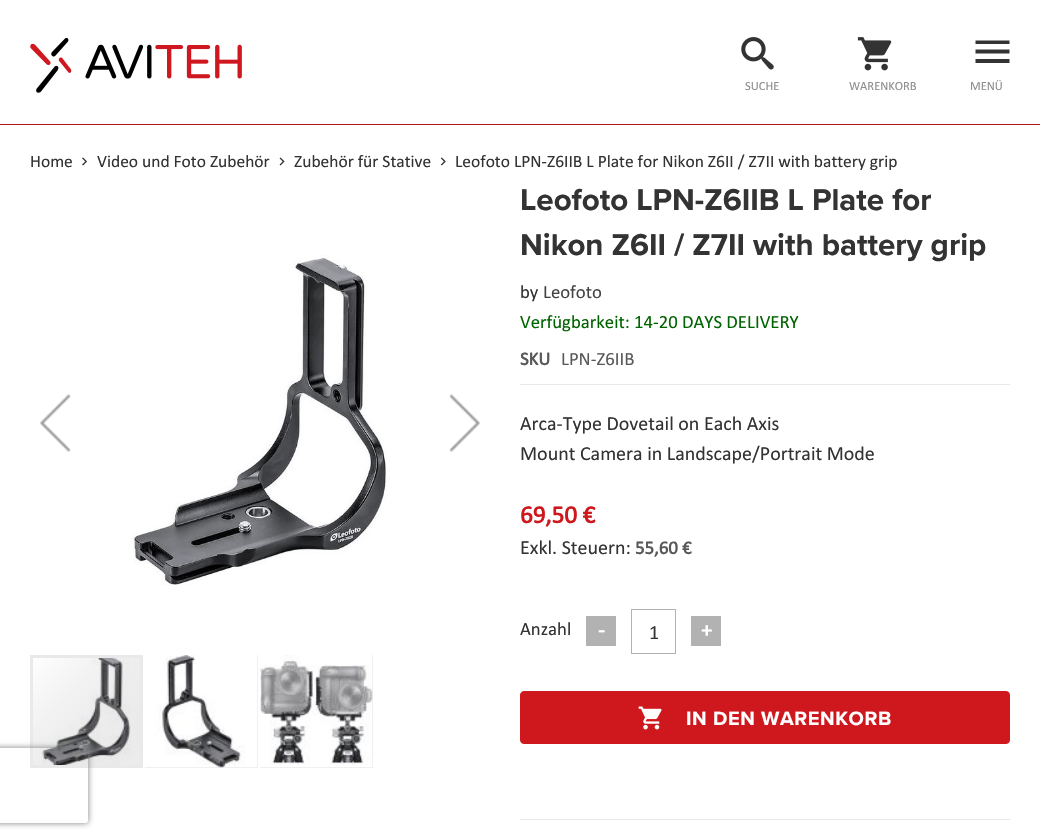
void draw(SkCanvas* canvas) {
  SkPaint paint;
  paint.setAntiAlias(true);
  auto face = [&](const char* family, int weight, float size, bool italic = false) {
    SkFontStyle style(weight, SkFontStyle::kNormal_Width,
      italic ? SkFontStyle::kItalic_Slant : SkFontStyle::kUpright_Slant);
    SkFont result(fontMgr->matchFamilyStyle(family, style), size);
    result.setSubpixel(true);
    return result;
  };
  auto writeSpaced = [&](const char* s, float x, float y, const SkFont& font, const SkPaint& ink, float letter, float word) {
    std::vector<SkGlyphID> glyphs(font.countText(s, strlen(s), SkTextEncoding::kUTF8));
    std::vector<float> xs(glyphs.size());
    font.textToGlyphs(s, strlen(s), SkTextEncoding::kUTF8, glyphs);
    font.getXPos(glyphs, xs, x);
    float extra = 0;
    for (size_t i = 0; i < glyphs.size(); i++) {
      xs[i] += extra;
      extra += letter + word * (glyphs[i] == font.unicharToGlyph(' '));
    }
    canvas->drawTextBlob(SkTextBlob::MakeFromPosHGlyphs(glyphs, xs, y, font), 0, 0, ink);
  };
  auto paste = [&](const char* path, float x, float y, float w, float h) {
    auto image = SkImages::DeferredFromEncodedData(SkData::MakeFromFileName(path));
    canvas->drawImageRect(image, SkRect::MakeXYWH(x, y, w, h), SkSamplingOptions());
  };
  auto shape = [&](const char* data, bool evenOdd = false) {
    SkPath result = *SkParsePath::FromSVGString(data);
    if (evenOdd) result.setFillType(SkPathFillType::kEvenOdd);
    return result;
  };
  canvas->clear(0xffffffff);
  paint.setColor(0xffb2141a);
  canvas->drawRect(SkRect::MakeXYWH(0, 124, 1040, 1), paint);
  paste("img/1.png", 30, 38, 212, 55);
  paste("img/2.png", 741, 37, 33, 33);
  paste("img/3.png", 857, 37, 35, 34);
  paint.setColor(0xff333333);
  canvas->drawPath(shape("M975.5 40.5H1009.5V44H975.5ZM975.5 53.5V49.5H1009.5V53.5ZM975.5 63V59H1009.5V63Z"), paint);
  paste("img/4.png", 82, 157, 5, 9);
  paste("img/5.png", 279, 157, 6, 9);
  paste("img/6.png", 440, 157, 6, 9);
  paste("img/7.png", 40, 394, 31, 58);
  paste("img/8.png", 131, 255, 256, 331);
  paste("img/9.png", 449, 394, 31, 58);
  paste("img/12.png", 33, 658, 107, 107);
  paint.setStroke(true);
  paint.setStrokeWidth(3);
  paint.setColor(0xffe9e9e9);
  canvas->drawRect(SkRect::MakeXYWH(31.5f, 656.5f, 110, 110), paint);
  paint.setStroke(false);
  paint.setColor(0xffebebeb);
  canvas->drawRect(SkRect::MakeXYWH(145, 655, 113, 113), paint);
  paste("img/10.png", 145, 655, 113, 113);
  canvas->drawRect(SkRect::MakeXYWH(260, 655, 113, 113), paint);
  paste("img/11.png", 260, 655, 113, 113);
  paint.setColor(0xffe9e9e9);
  canvas->drawRect(SkRect::MakeXYWH(520, 384, 490, 1), paint);
  paint.setColor(0xffb2b2b2);
  canvas->drawRect(SkRect::MakeXYWH(586, 616, 30, 30), paint);
  paint.setStroke(true);
  paint.setStrokeWidth(1);
  canvas->drawRect(SkRect::MakeXYWH(631.5f, 609.5f, 44, 44), paint);
  paint.setStroke(false);
  canvas->drawRect(SkRect::MakeXYWH(691, 616, 30, 30), paint);
  paint.setColor(0xffce181e);
  canvas->drawRoundRect(SkRect::MakeXYWH(520.5f, 691.5f, 489, 52), 3.5f, 3.5f, paint);
  paint.setStroke(true);
  canvas->drawRoundRect(SkRect::MakeXYWH(520.5f, 691.5f, 489, 52), 3.5f, 3.5f, paint);
  paste("img/13.png", 638, 706, 24, 24);
  paint.setStroke(false);
  paint.setColor(0xffe9e9e9);
  canvas->drawRect(SkRect::MakeXYWH(520, 819, 490, 1), paint);
  canvas->save();
  canvas->clipPath(shape("M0 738H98V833H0ZM-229.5 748H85.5C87 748 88 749 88 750.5V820.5C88 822 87 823 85.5 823H-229.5C-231 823-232 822-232 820.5V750.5C-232 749-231 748-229.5 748Z", true), true);
  paint.setColor(0xff808080);
  paint.setMaskFilter(SkMaskFilter::MakeBlur(kNormal_SkBlurStyle, 3));
  canvas->drawRoundRect(SkRect::MakeXYWH(-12, 748, 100, 75), 2.5f, 2.5f, paint);
  paint.setMaskFilter(nullptr);
  canvas->restore();
  auto f0 = face("Calibri", 400, 12.5f);
  paint.setColor(0xff8d8d8d);
  {
    const struct { const char* s; float x, y; } items[] = {
      {"SUCHE", 745, 90},
      {"WARENKORB", 849, 90},
      {"MENÜ", 970, 90},
    };
    for (auto [s, x, y] : items) {
      canvas->drawString(s, x, y, f0, paint);
    }
  }
  auto f1 = face("Calibri", 400, 17.5f);
  paint.setColor(0xff333333);
  {
    const struct { const char* s; float x, y; } items[] = {
      {"Home", 30, 167},
      {"Video und Foto Zubehör", 97, 167},
      {"Zubehör für Stative", 294, 167},
      {"Leofoto LPN-Z6IIB L Plate for Nikon Z6II / Z7II with battery grip", 455, 167},
    };
    for (auto [s, x, y] : items) {
      canvas->drawString(s, x, y, f1, paint);
    }
  }
  auto f2 = face("Proxima Nova", 700, 31.25f);
  canvas->drawString("Leofoto LPN-Z6IIB L Plate for", 520, 210, f2, paint);
  canvas->drawString("Nikon Z6II / Z7II with battery grip", 520, 255, f2, paint);
  auto f3 = face("Calibri", 400, 18.75f);
  canvas->drawString("by", 520, 298, f3, paint);
  paint.setColor(0xff434343);
  canvas->drawString("Leofoto", 543, 298, f3, paint);
  paint.setColor(0xff006400);
  canvas->drawString("Verfügbarkeit: 14-20 DAYS DELIVERY", 520, 328, f3, paint);
  auto f4 = face("Calibri", 700, 18.75f);
  paint.setColor(0xff595959);
  canvas->drawString("SKU", 520, 365, f4, paint);
  canvas->drawString("LPN-Z6IIB", 561, 365, f3, paint);
  auto f5 = face("Calibri", 400, 20);
  paint.setColor(0xff333333);
  canvas->drawString("Arca-Type Dovetail on Each Axis", 520, 430, f5, paint);
  canvas->drawString("Mount Camera in Landscape/Portrait Mode", 520, 460, f5, paint);
  auto f6 = face("Calibri", 700, 25);
  paint.setColor(0xffce181e);
  canvas->drawString("69,50 €", 520, 523, f6, paint);
  paint.setColor(0xff333333);
  canvas->drawString("Exkl. Steuern:", 520, 554, f5, paint);
  paint.setColor(0xff595959);
  canvas->drawString("55,60 €", 635, 554, f4, paint);
  paint.setColor(0xff333333);
  canvas->drawString("Anzahl", 520, 635, f3, paint);
  auto f7 = face("Calibri", 700, 22);
  paint.setColor(0xffffffff);
  canvas->drawString("-", 598, 637, f7, paint);
  paint.setColor(0xff333333);
  canvas->drawString("1", 649, 639, f5, paint);
  paint.setColor(0xffffffff);
  canvas->drawString("+", 701, 637, f7, paint);
  auto f8 = face("Proxima Nova", 700, 20);
  writeSpaced("IN DEN WARENKORB", 686, 725, f8, paint, 0.6f, 0);
}
